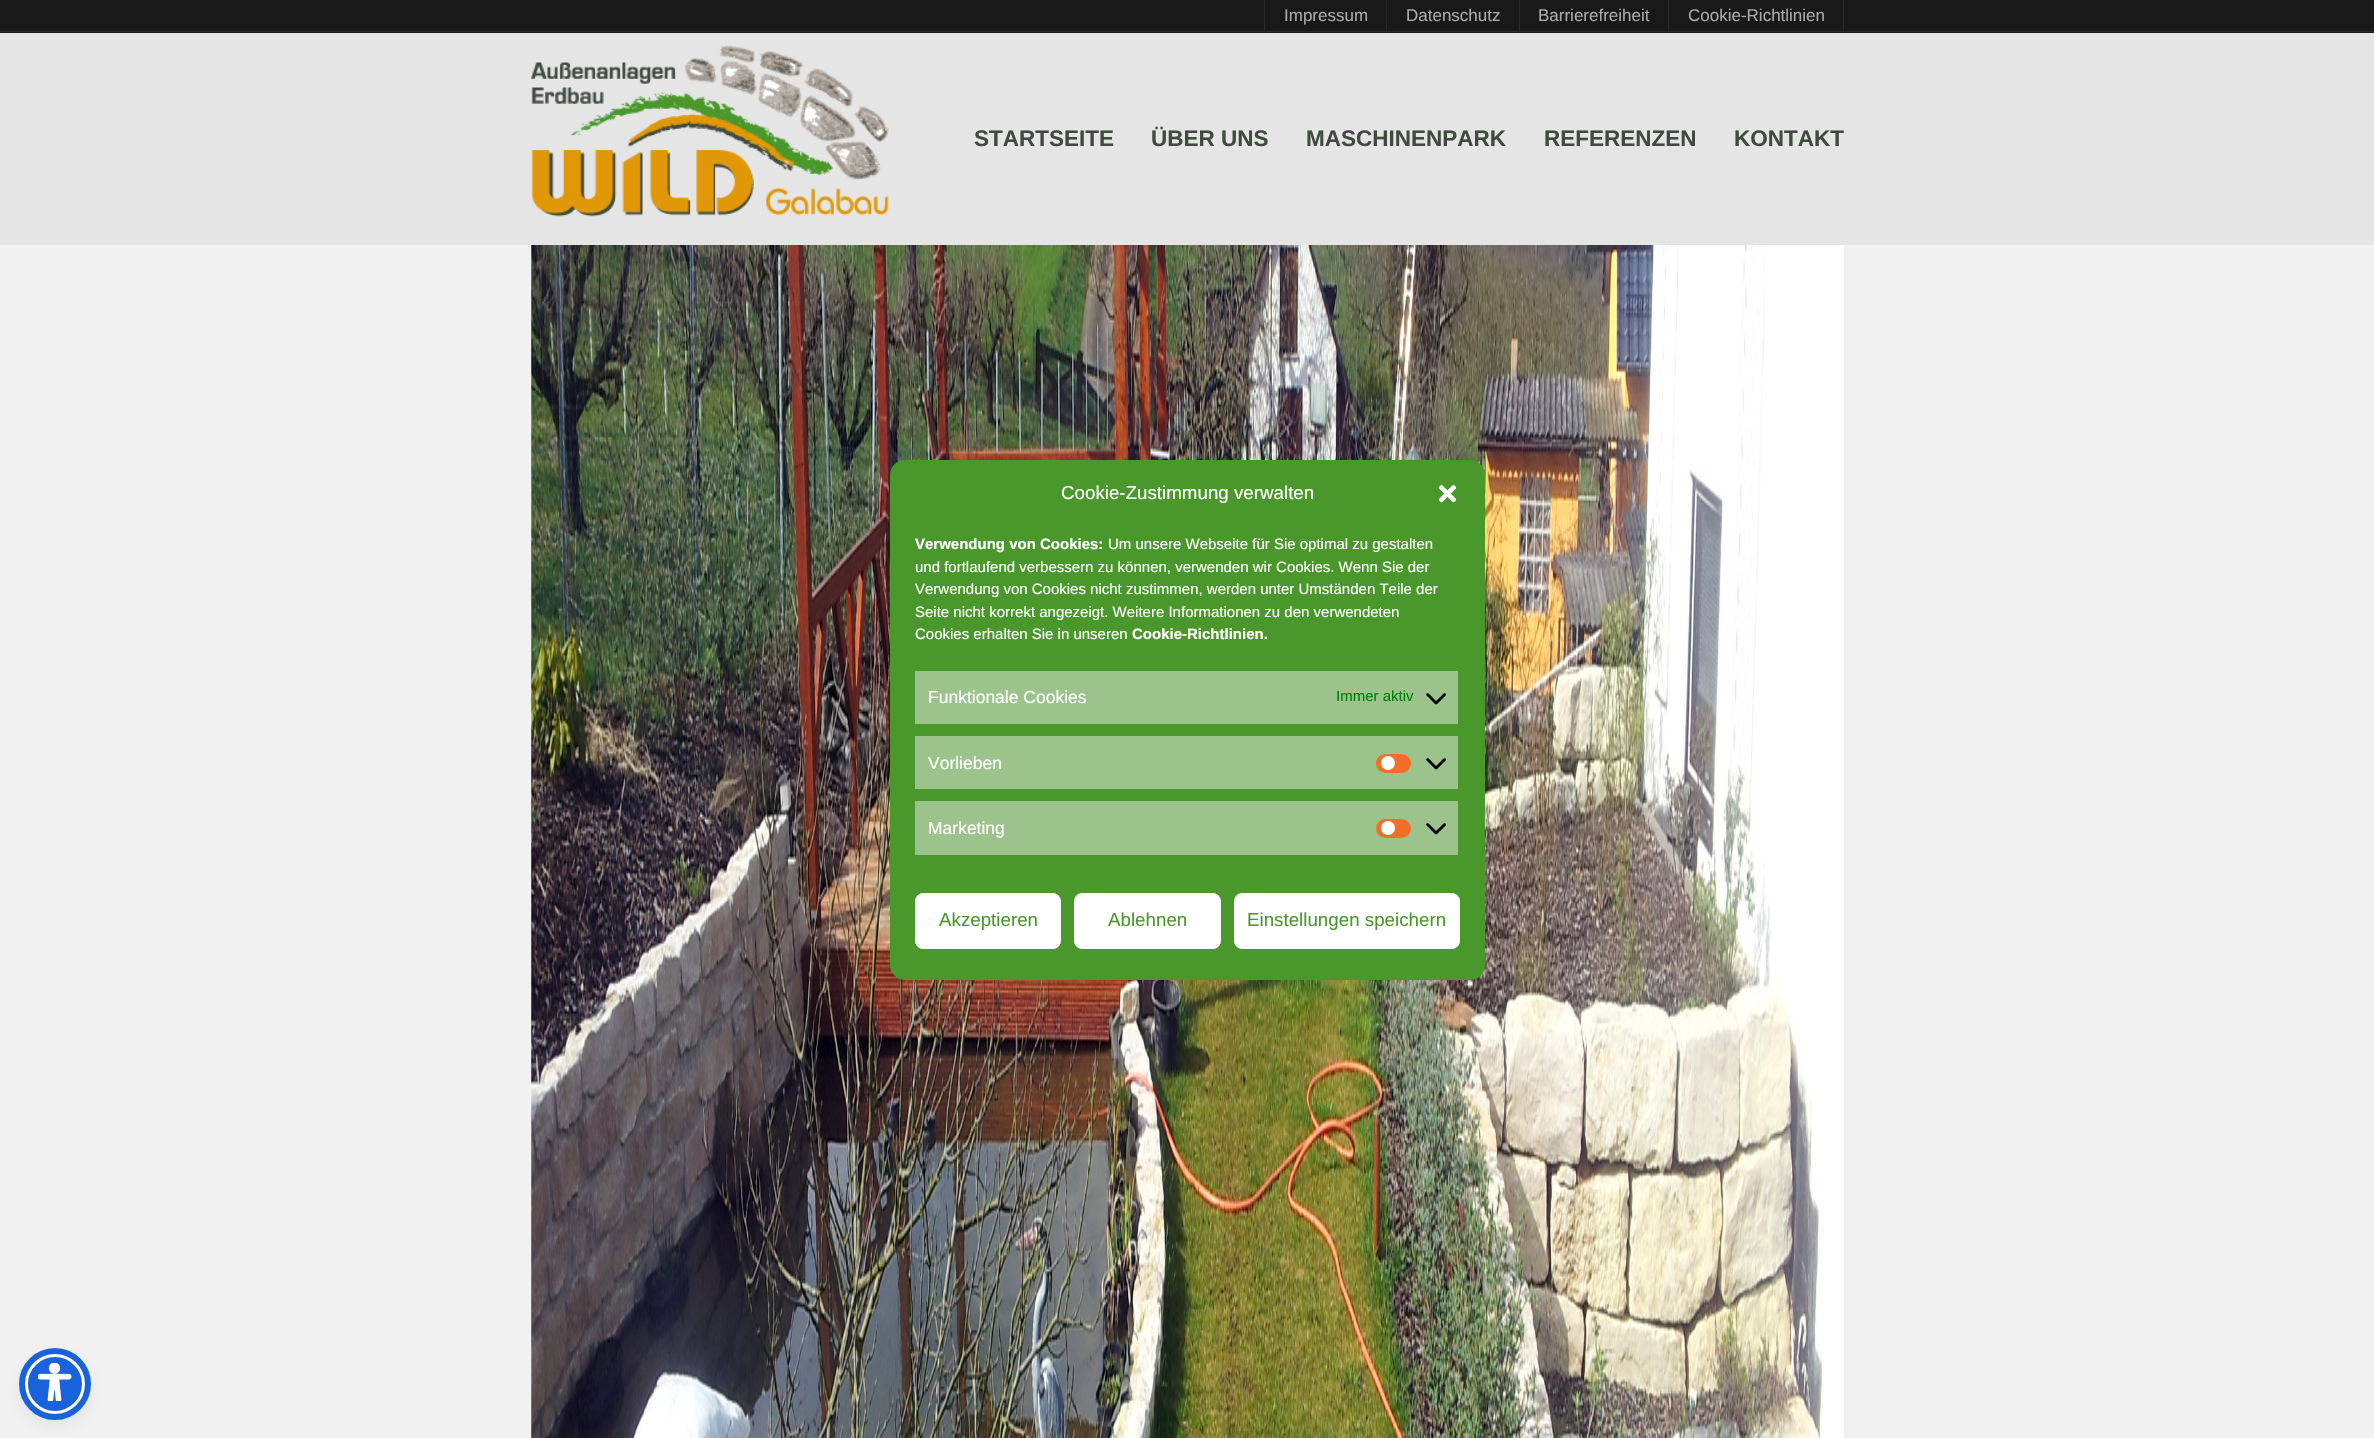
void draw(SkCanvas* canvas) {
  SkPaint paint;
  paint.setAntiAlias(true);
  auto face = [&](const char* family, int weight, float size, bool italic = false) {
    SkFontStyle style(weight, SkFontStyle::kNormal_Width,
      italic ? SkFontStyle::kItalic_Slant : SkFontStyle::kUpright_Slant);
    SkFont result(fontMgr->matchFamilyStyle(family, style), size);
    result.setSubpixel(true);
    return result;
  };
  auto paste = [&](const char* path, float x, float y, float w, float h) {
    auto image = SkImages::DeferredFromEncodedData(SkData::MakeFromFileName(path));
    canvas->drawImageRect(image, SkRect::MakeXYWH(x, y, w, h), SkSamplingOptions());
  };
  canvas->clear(0xfff1f1f1);
  {
    const struct { float x, y, w, h; SkColor color; } items[] = {
      {0, 0, 2374, 33, 0xff191919},
      {0, 31, 2374, 1, 0xff2a2a2a},
      {1264, 0, 1, 31, 0xff2a2a2a},
      {1386, 0, 1, 31, 0xff2a2a2a},
      {1519, 0, 1, 31, 0xff2a2a2a},
      {1668, 0, 1, 31, 0xff2a2a2a},
      {1843, 0, 1, 31, 0xff2a2a2a},
      {0, 33, 2374, 212, 0xffe5e5e5},
    };
    for (auto [x, y, w, h, color] : items) {
      paint.setColor(color);
      canvas->drawRect(SkRect::MakeXYWH(x, y, w, h), paint);
    }
  }
  paste("img/1.png", 531, 45, 359, 172);
  paste("img/2.png", 531, 245, 1313, 1193);
  paint.setColor(0xff4a972b);
  canvas->drawRoundRect(SkRect::MakeXYWH(890, 460, 595, 520), 15, 15, paint);
  paste("img/3.png", 1438, 485, 19, 18);
  paint.setColor(0xff9dc38d);
  canvas->drawRect(SkRect::MakeXYWH(915, 671, 543, 53), paint);
  paste("img/4.png", 1426, 693, 20, 12);
  canvas->drawRect(SkRect::MakeXYWH(915, 736, 543, 53), paint);
  paint.setColor(0xfff56e28);
  canvas->drawRoundRect(SkRect::MakeXYWH(1376, 754, 35, 19), 9.5f, 9.5f, paint);
  paint.setColor(0xffffffff);
  canvas->drawCircle(1388, 763, 7, paint);
  paste("img/4.png", 1426, 758, 20, 12);
  paint.setColor(0xff9dc38d);
  canvas->drawRect(SkRect::MakeXYWH(915, 801, 543, 54), paint);
  paint.setColor(0xfff56e28);
  canvas->drawRoundRect(SkRect::MakeXYWH(1376, 819, 35, 19), 9.5f, 9.5f, paint);
  paint.setColor(0xffffffff);
  canvas->drawCircle(1388, 828, 7, paint);
  paste("img/4.png", 1426, 823, 20, 12);
  canvas->drawRoundRect(SkRect::MakeXYWH(915.5f, 893.5f, 145, 55), 7.5f, 7.5f, paint);
  paint.setStroke(true);
  paint.setStrokeWidth(1);
  canvas->drawRoundRect(SkRect::MakeXYWH(915.5f, 893.5f, 145, 55), 7.5f, 7.5f, paint);
  paint.setStroke(false);
  canvas->drawRoundRect(SkRect::MakeXYWH(1074.5f, 893.5f, 146, 55), 7.5f, 7.5f, paint);
  paint.setStroke(true);
  canvas->drawRoundRect(SkRect::MakeXYWH(1074.5f, 893.5f, 146, 55), 7.5f, 7.5f, paint);
  paint.setStroke(false);
  canvas->drawRoundRect(SkRect::MakeXYWH(1234.5f, 893.5f, 225, 55), 7.5f, 7.5f, paint);
  paint.setStroke(true);
  canvas->drawRoundRect(SkRect::MakeXYWH(1234.5f, 893.5f, 225, 55), 7.5f, 7.5f, paint);
  paint.setStroke(false);
  paint.setColor(0x335d6494);
  paint.setMaskFilter(SkMaskFilter::MakeBlur(kNormal_SkBlurStyle, 2.5f));
  canvas->drawRoundRect(SkRect::MakeXYWH(25, 1356, 60, 60), 30, 30, paint);
  paint.setMaskFilter(nullptr);
  paint.setColor(0x26252c61);
  paint.setMaskFilter(SkMaskFilter::MakeBlur(kNormal_SkBlurStyle, 9.5f));
  canvas->drawRoundRect(SkRect::MakeXYWH(25, 1360, 60, 60), 30, 30, paint);
  paint.setMaskFilter(nullptr);
  paint.setColor(0xff1863dc);
  canvas->drawCircle(55, 1384, 28.5f, paint);
  paint.setStroke(true);
  paint.setStrokeWidth(3);
  paint.setColor(0xffffffff);
  canvas->drawCircle(55, 1384, 28.5f, paint);
  paint.setStrokeWidth(6);
  paint.setColor(0xff1863dc);
  canvas->drawCircle(55, 1384, 33, paint);
  paste("img/5.png", 38, 1363, 34, 38);
  auto f0 = face("Liberation Sans", 400, 17);
  paint.setStroke(false);
  paint.setColor(0xffaaaaaa);
  {
    const struct { const char* s; float x, y; } items[] = {
      {"Impressum", 1284, 21},
      {"Datenschutz", 1406, 21},
      {"Barrierefreiheit", 1538, 21},
      {"Cookie-Richtlinien", 1688, 21},
    };
    for (auto [s, x, y] : items) {
      canvas->drawString(s, x, y, f0, paint);
    }
  }
  auto f1 = face("Liberation Sans", 700, 22.5f);
  paint.setColor(0xff404a3f);
  {
    const struct { const char* s; float x, y; } items[] = {
      {"STARTSEITE", 974, 146},
      {"ÜBER UNS", 1151, 146},
      {"MASCHINENPARK", 1306, 146},
      {"REFERENZEN", 1544, 146},
      {"KONTAKT", 1734, 146},
    };
    for (auto [s, x, y] : items) {
      canvas->drawString(s, x, y, f1, paint);
    }
  }
  auto f2 = face("Liberation Sans", 400, 18.75f);
  paint.setColor(0xffffffff);
  canvas->drawString("Cookie-Zustimmung verwalten", 1061, 499, f2, paint);
  auto f3 = face("Liberation Sans", 700, 15);
  canvas->drawString("Verwendung von Cookies:", 915, 549, f3, paint);
  auto f4 = face("Liberation Sans", 400, 15);
  {
    const struct { const char* s; float x, y; } items[] = {
      {"Um unsere Webseite für Sie optimal zu gestalten", 1108, 549},
      {"und fortlaufend verbessern zu können, verwenden wir Cookies. Wenn Sie der", 915, 572},
      {"Verwendung von Cookies nicht zustimmen, werden unter Umständen Teile der", 915, 594},
      {"Seite nicht korrekt angezeigt. Weitere Informationen zu den verwendeten", 915, 617},
      {"Cookies erhalten Sie in unseren", 915, 639},
    };
    for (auto [s, x, y] : items) {
      canvas->drawString(s, x, y, f4, paint);
    }
  }
  canvas->drawString("Cookie-Richtlinien.", 1132, 639, f3, paint);
  auto f5 = face("Liberation Sans", 400, 17.5f);
  canvas->drawString("Funktionale Cookies", 928, 703, f5, paint);
  paint.setColor(0xff008000);
  canvas->drawString("Immer aktiv", 1336, 701, f4, paint);
  paint.setColor(0xffffffff);
  canvas->drawString("Vorlieben", 928, 769, f5, paint);
  canvas->drawString("Marketing", 928, 834, f5, paint);
  paint.setColor(0xff4a972b);
  {
    const struct { const char* s; float x, y; } items[] = {
      {"Akzeptieren", 939, 926},
      {"Ablehnen", 1108, 926},
      {"Einstellungen speichern", 1247, 926},
    };
    for (auto [s, x, y] : items) {
      canvas->drawString(s, x, y, f2, paint);
    }
  }
}
